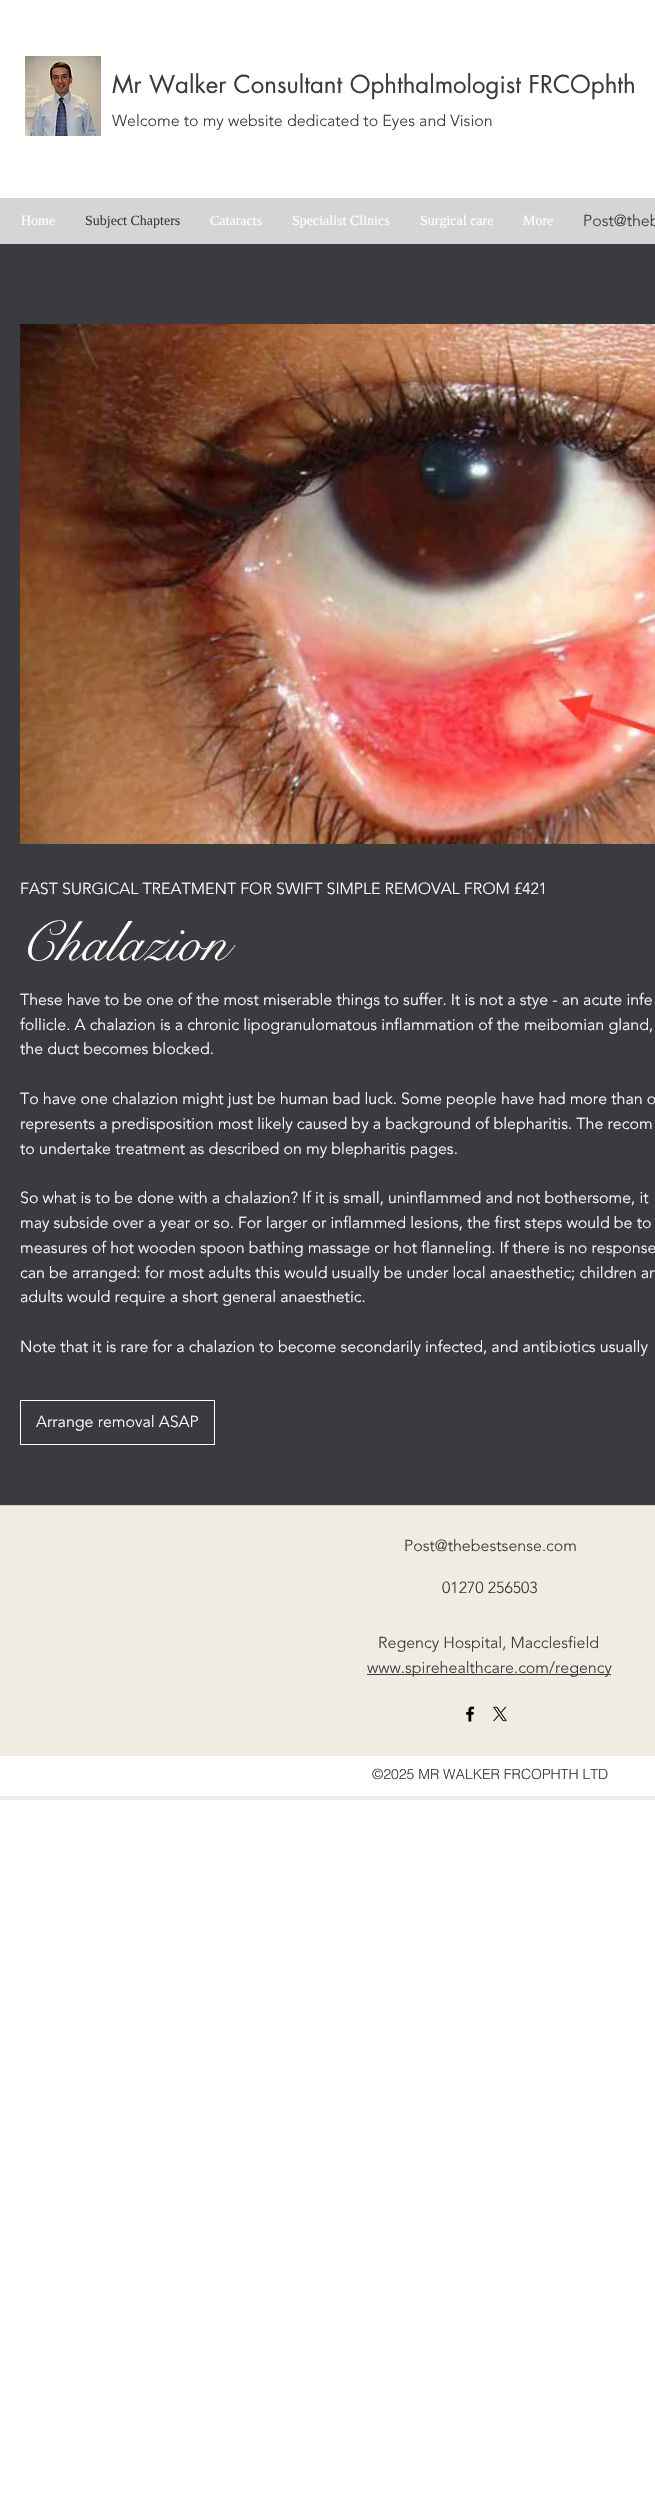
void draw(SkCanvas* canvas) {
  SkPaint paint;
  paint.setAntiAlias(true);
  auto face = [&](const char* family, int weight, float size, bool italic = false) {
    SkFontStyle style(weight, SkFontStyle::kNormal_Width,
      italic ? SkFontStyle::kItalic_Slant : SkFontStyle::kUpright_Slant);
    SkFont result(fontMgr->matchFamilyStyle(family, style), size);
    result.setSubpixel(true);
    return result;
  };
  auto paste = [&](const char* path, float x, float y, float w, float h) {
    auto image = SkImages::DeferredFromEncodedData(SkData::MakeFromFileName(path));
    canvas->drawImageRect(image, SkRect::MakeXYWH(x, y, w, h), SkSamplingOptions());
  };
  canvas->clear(0xffffffff);
  paste("img/1.png", 25, 56, 76, 80);
  paint.setColor(0xffd5d5d5);
  canvas->drawRect(SkRect::MakeXYWH(0, 198, 655, 46), paint);
  paint.setColor(0xff3a3b3f);
  canvas->drawRect(SkRect::MakeXYWH(0, 244, 655, 1261), paint);
  paste("img/2.png", 20, 324, 635, 520);
  paint.setStroke(true);
  paint.setStrokeWidth(1);
  paint.setColor(0xffffffff);
  canvas->drawRect(SkRect::MakeXYWH(20.5f, 1400.5f, 194, 44), paint);
  paint.setStroke(false);
  {
    const struct { float x, y, w, h; SkColor color; } items[] = {
      {0, 1506, 655, 294, 0xffefece2},
      {0, 1505, 655, 1, 0xffd4d1ca},
      {367, 1674, 244, 1, 0xff3a3b3f},
    };
    for (auto [x, y, w, h, color] : items) {
      paint.setColor(color);
      canvas->drawRect(SkRect::MakeXYWH(x, y, w, h), paint);
    }
  }
  paste("img/3.png", 466, 1706, 9, 16);
  paste("img/4.png", 493, 1706, 14, 16);
  paint.setColor(0xffffffff);
  canvas->drawRect(SkRect::MakeXYWH(0, 1756, 655, 40), paint);
  auto f0 = face("futura", 400, 24);
  paint.setColor(0xff3a3b3f);
  canvas->drawString("Mr Walker Consultant Ophthalmologist FRCOphth", 112, 93, f0, paint);
  auto f1 = face("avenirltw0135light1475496", 300, 16);
  canvas->drawString("Welcome to my website dedicated to Eyes and Vision", 112, 126, f1, paint);
  auto f2 = face("Liberation Serif", 400, 14);
  paint.setColor(0xffffffff);
  canvas->drawString("Home", 21, 225, f2, paint);
  paint.setColor(0xff3a3b3f);
  canvas->drawString("Subject Chapters", 85, 225, f2, paint);
  paint.setColor(0xffffffff);
  {
    const struct { const char* s; float x, y; } items[] = {
      {"Cataracts", 210, 225},
      {"Specialist Clinics", 292, 225},
      {"Surgical care", 420, 225},
      {"More", 523, 225},
    };
    for (auto [s, x, y] : items) {
      canvas->drawString(s, x, y, f2, paint);
    }
  }
  paint.setColor(0xff3a3b3f);
  canvas->drawString("Post@theb", 583, 226, f1, paint);
  paint.setColor(0xffffffff);
  canvas->drawString("FAST SURGICAL TREATMENT FOR SWIFT SIMPLE REMOVAL FROM £421", 20, 894, f1, paint);
  auto f3 = face("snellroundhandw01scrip", 400, 56);
  canvas->drawString("Chalazion", 20, 960, f3, paint);
  {
    const struct { const char* s; float x, y; } items[] = {
      {"These have to be one of the most miserable things to suffer. It is not a stye - an acute infe", 20, 1005},
      {"follicle. A chalazion is a chronic lipogranulomatous inflammation of the meibomian gland,", 20, 1030},
      {"the duct becomes blocked.", 20, 1054},
      {"To have one chalazion might just be human bad luck. Some people have had more than o", 20, 1104},
      {"represents a predisposition most likely caused by a background of blepharitis. The recom", 20, 1129},
      {"to undertake treatment as described on my blepharitis pages.", 20, 1154},
      {"So what is to be done with a chalazion? If it is small, uninflammed and not bothersome, it", 20, 1203},
      {"may subside over a year or so. For larger or inflammed lesions, the first steps would be to", 20, 1228},
      {"measures of hot wooden spoon bathing massage or hot flanneling. If there is no response", 20, 1253},
      {"can be arranged: for most adults this would usually be under local anaesthetic; children an", 20, 1278},
      {"adults would require a short general anaesthetic.", 20, 1302},
      {"Note that it is rare for a chalazion to become secondarily infected, and antibiotics usually", 20, 1352},
      {"Arrange removal ASAP", 36, 1427},
    };
    for (auto [s, x, y] : items) {
      canvas->drawString(s, x, y, f1, paint);
    }
  }
  paint.setColor(0xff3a3b3f);
  {
    const struct { const char* s; float x, y; } items[] = {
      {"Post@thebestsense.com", 404, 1551},
      {"01270 256503", 442, 1593},
      {"Regency Hospital, Macclesfield", 378, 1648},
      {"www.spirehealthcare.com/regency", 367, 1673},
    };
    for (auto [s, x, y] : items) {
      canvas->drawString(s, x, y, f1, paint);
    }
  }
  auto f4 = face("helvetica", 300, 14);
  canvas->drawString("©2025 MR WALKER FRCOPHTH LTD", 372, 1779, f4, paint);
}
